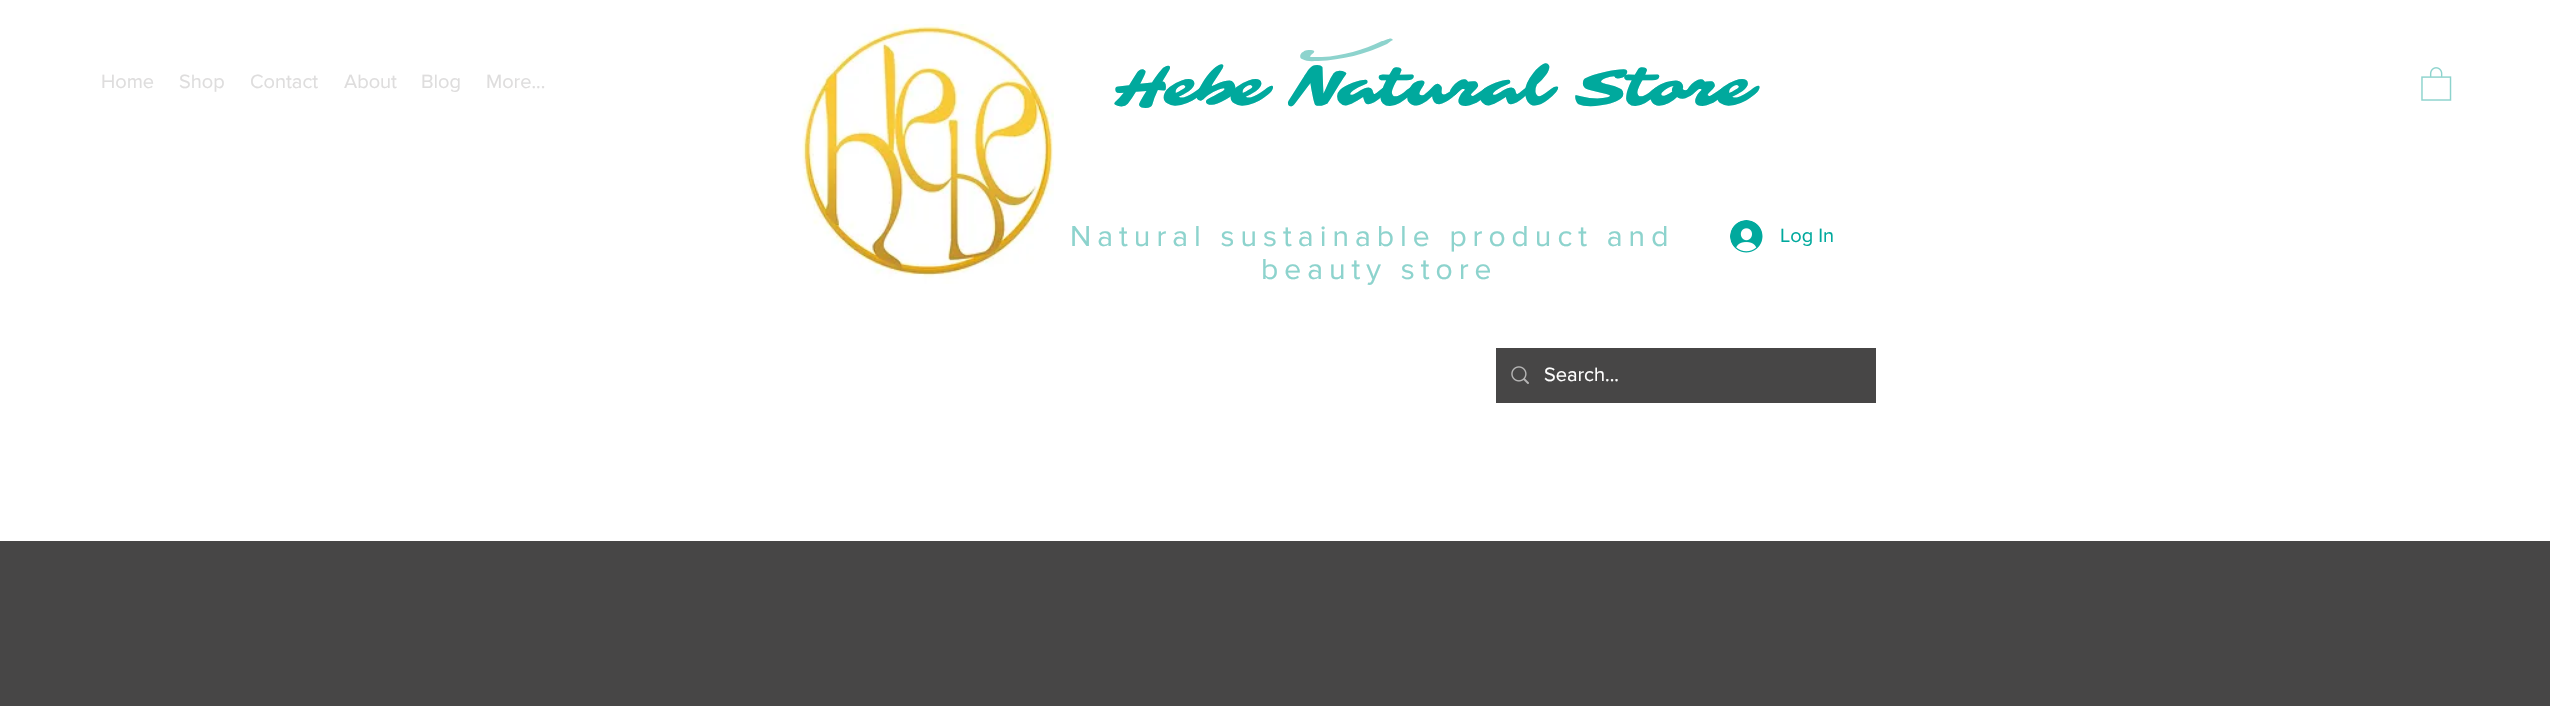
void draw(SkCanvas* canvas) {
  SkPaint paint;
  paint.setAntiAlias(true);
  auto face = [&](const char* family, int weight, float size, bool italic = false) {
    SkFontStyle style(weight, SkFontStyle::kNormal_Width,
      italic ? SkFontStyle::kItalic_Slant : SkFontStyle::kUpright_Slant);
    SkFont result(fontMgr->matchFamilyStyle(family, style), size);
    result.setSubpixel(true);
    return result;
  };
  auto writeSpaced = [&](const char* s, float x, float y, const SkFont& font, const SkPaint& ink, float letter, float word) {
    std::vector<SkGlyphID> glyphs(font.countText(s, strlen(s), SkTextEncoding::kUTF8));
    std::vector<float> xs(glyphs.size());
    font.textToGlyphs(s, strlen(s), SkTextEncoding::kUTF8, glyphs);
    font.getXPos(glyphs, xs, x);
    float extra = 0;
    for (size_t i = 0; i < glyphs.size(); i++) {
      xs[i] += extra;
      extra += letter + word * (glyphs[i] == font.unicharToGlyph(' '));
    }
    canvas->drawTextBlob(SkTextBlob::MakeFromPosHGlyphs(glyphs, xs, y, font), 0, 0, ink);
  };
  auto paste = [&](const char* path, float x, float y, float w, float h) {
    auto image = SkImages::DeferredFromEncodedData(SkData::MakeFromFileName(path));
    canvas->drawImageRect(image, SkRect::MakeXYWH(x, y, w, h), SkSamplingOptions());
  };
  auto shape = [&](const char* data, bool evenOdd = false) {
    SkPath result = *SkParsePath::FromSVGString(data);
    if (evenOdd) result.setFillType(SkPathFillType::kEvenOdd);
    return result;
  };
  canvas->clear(0xff474646);
  paint.setColor(0xffffffff);
  canvas->drawRect(SkRect::MakeXYWH(0, 0, 2550, 541), paint);
  paste("img/1.png", 802, 24, 252, 260);
  paint.setColor(0xff8dd3cd);
  canvas->drawPath(shape("M1382 41C1363 50 1343 56 1322 57H1311C1307 56 1320 51 1311 50C1308 50 1305 50 1303 52C1300 53 1299 58 1302 59C1307 62 1313 61 1318 61C1342 60 1366 54 1387 44L1391 41L1393 40L1392 39C1391 37 1384 41 1382 41Z"), paint);
  paste("img/2.png", 1730, 220, 33, 33);
  paint.setColor(0xff474646);
  canvas->drawRect(SkRect::MakeXYWH(1496, 348, 380, 55), paint);
  paste("img/3.png", 1511, 366, 18, 18);
  paste("img/4.png", 2421, 67, 31, 34);
  auto f0 = face("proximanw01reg", 400, 20);
  paint.setColor(0xffdedddd);
  {
    const struct { const char* s; float x, y; } items[] = {
      {"Home", 101, 88},
      {"Shop", 179, 88},
      {"Contact", 250, 88},
      {"About", 344, 88},
      {"Blog", 421, 88},
      {"More...", 486, 88},
    };
    for (auto [s, x, y] : items) {
      canvas->drawString(s, x, y, f0, paint);
    }
  }
  auto f1 = face("Sarina", 400, 53.75f);
  paint.setColor(0xff00a99d);
  canvas->drawString("Hebe Natural Store", 1115, 105, f1, paint);
  auto f2 = face("proximanw01reg", 400, 30);
  paint.setColor(0xff8dd3cd);
  writeSpaced("Natural sustainable product and", 1070, 246, f2, paint, 6, 0);
  writeSpaced("beauty store", 1261, 279, f2, paint, 6, 0);
  paint.setColor(0xff00a99d);
  canvas->drawString("Log In", 1780, 242, f0, paint);
  paint.setColor(0xffffffff);
  canvas->drawString("Search...", 1544, 381, f0, paint);
}
